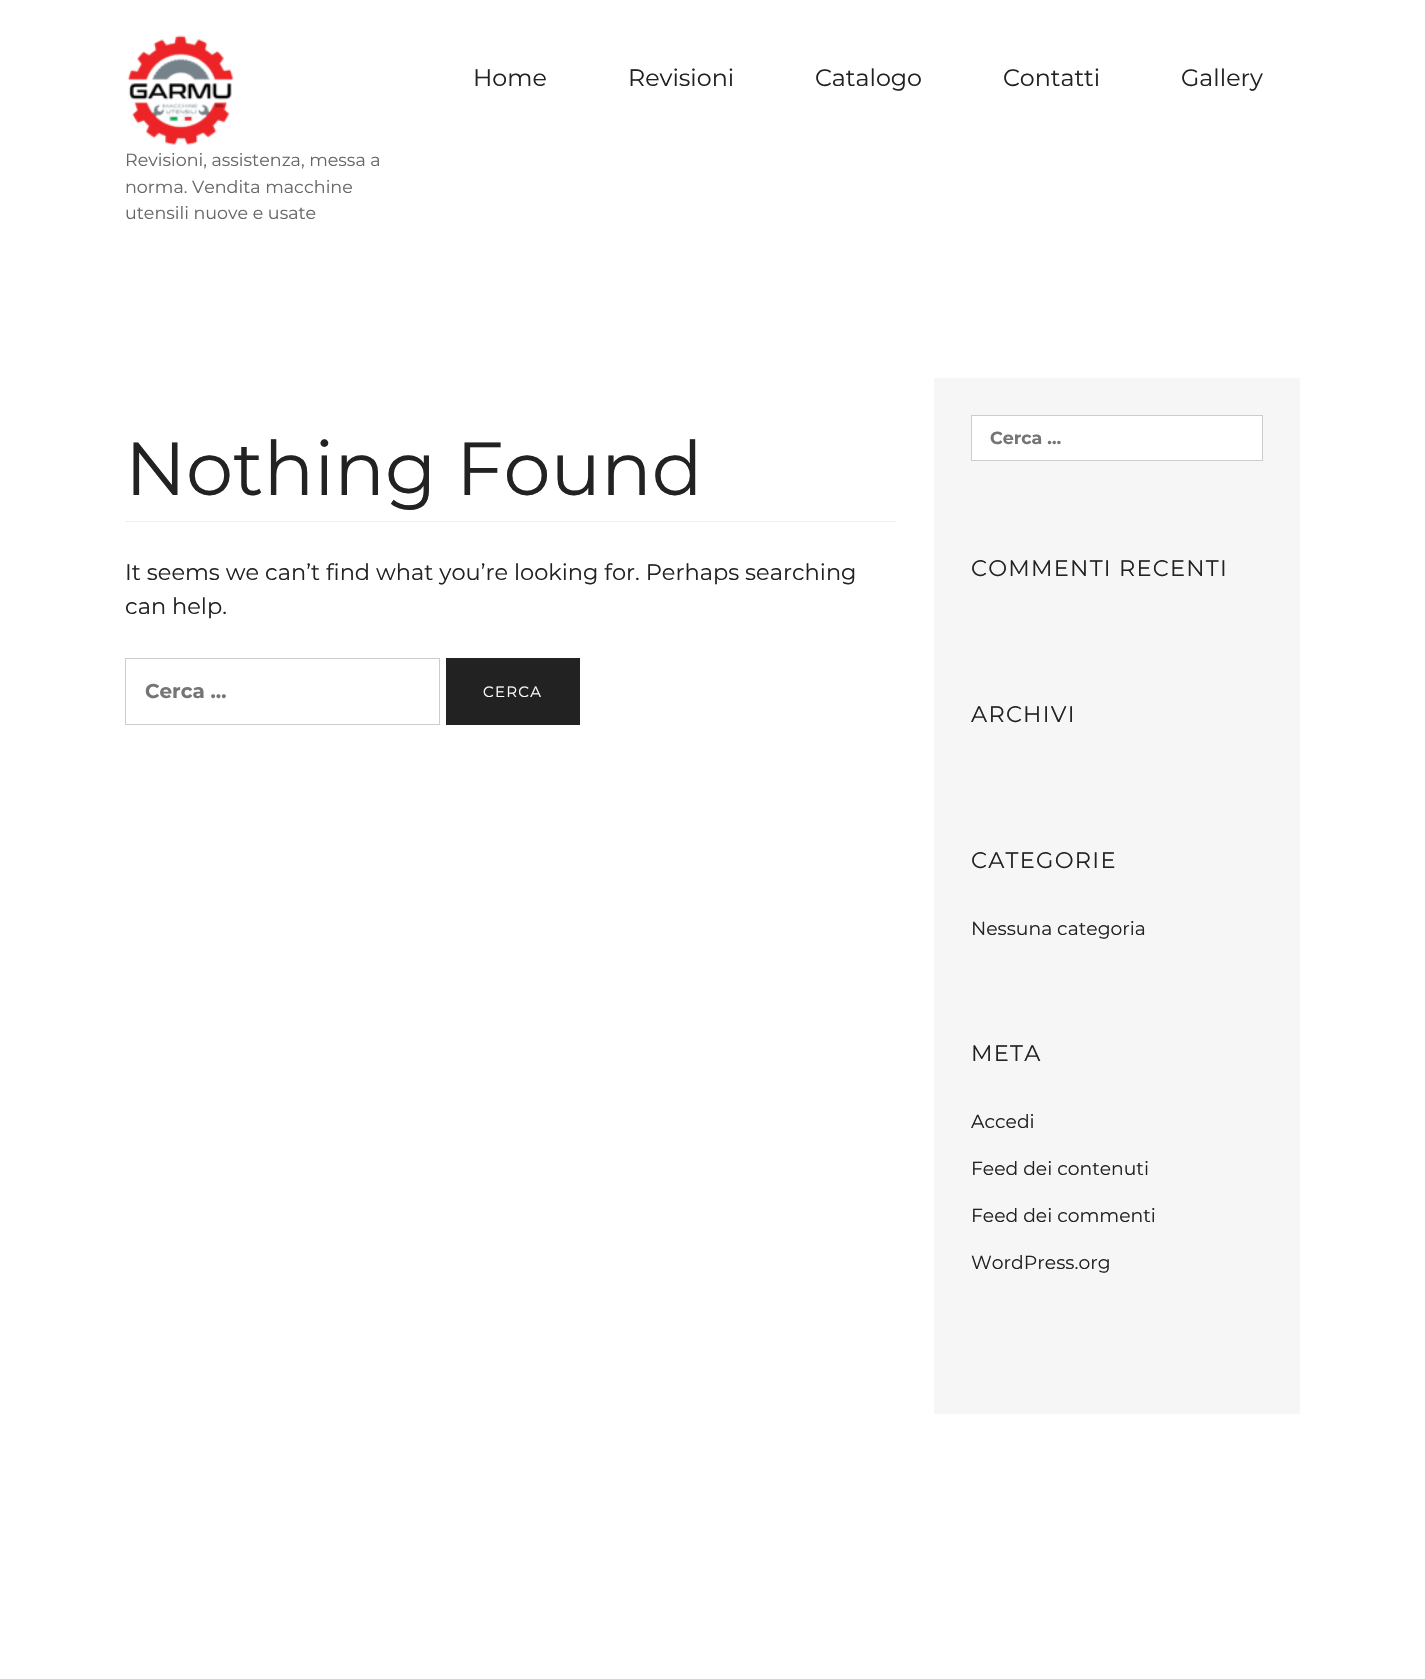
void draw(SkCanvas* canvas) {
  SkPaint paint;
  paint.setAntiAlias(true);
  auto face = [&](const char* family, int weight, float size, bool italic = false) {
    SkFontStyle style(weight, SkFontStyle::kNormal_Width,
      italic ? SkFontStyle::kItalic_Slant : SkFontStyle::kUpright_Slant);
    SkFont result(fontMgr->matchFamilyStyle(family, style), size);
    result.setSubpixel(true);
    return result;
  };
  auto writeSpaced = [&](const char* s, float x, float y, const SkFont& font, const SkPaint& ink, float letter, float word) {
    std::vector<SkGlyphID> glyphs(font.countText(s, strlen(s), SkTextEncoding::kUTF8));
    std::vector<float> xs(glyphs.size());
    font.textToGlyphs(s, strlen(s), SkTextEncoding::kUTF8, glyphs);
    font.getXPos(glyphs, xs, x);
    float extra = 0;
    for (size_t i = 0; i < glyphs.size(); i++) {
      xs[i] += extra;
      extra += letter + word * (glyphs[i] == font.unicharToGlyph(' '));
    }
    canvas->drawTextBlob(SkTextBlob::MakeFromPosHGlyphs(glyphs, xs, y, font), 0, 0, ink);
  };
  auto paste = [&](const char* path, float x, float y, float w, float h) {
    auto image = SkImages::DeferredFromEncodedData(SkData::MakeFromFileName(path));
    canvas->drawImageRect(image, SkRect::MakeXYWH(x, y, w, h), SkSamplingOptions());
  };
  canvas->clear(0xffffffff);
  paste("img/1.png", 127, 35, 107, 110);
  paint.setColor(0xffeeeeee);
  canvas->drawRect(SkRect::MakeXYWH(125, 521, 771, 1), paint);
  paint.setStroke(true);
  paint.setStrokeWidth(1);
  paint.setColor(0xffcccccc);
  canvas->drawRect(SkRect::MakeXYWH(125.5f, 658.5f, 314, 66), paint);
  paint.setStroke(false);
  paint.setColor(0xff222222);
  canvas->drawRect(SkRect::MakeXYWH(446, 658, 134, 67), paint);
  paint.setColor(0xfff6f6f6);
  canvas->drawRect(SkRect::MakeXYWH(934, 378, 366, 1036), paint);
  paint.setColor(0xffffffff);
  canvas->drawRect(SkRect::MakeXYWH(971.5f, 415.5f, 291, 45), paint);
  paint.setStroke(true);
  paint.setColor(0xffcccccc);
  canvas->drawRect(SkRect::MakeXYWH(971.5f, 415.5f, 291, 45), paint);
  auto f0 = face("Montserrat", 400, 23.75f);
  paint.setStroke(false);
  paint.setColor(0xff222222);
  {
    const struct { const char* s; float x, y; } items[] = {
      {"Home", 473, 86},
      {"Revisioni", 628, 86},
      {"Catalogo", 815, 86},
      {"Contatti", 1003, 86},
      {"Gallery", 1181, 86},
    };
    for (auto [s, x, y] : items) {
      canvas->drawString(s, x, y, f0, paint);
    }
  }
  auto f1 = face("Montserrat", 400, 17.5f);
  paint.setColor(0xff676767);
  {
    const struct { const char* s; float x, y; } items[] = {
      {"Revisioni, assistenza, messa a", 125, 166},
      {"norma. Vendita macchine", 125, 193},
      {"utensili nuove e usate", 125, 219},
    };
    for (auto [s, x, y] : items) {
      canvas->drawString(s, x, y, f1, paint);
    }
  }
  auto f2 = face("Montserrat", 400, 75);
  paint.setColor(0xff222222);
  canvas->drawString("Nothing Found", 125, 495, f2, paint);
  auto f3 = face("Montserrat", 400, 22.5f);
  canvas->drawString("It seems we can’t find what you’re looking for. Perhaps searching", 125, 580, f3, paint);
  canvas->drawString("can help.", 125, 614, f3, paint);
  auto f4 = face("Montserrat", 700, 20);
  paint.setColor(0xff757575);
  canvas->drawString("Cerca …", 145, 698, f4, paint);
  auto f5 = face("Montserrat", 400, 15);
  paint.setColor(0xffffffff);
  writeSpaced("CERCA", 483, 697, f5, paint, 1.25f, 0);
  auto f6 = face("Montserrat", 700, 17.5f);
  paint.setColor(0xff757575);
  canvas->drawString("Cerca …", 990, 444, f6, paint);
  paint.setColor(0xff222222);
  {
    const struct { const char* s; float x, y; } items[] = {
      {"COMMENTI RECENTI", 971, 576},
      {"ARCHIVI", 971, 722},
      {"CATEGORIE", 971, 868},
    };
    for (auto [s, x, y] : items) {
      writeSpaced(s, x, y, f3, paint, 1.25f, 0);
    }
  }
  auto f7 = face("Montserrat", 400, 18.75f);
  canvas->drawString("Nessuna categoria", 971, 935, f7, paint);
  writeSpaced("META", 971, 1061, f3, paint, 1.25f, 0);
  {
    const struct { const char* s; float x, y; } items[] = {
      {"Accedi", 971, 1128},
      {"Feed dei contenuti", 971, 1175},
      {"Feed dei commenti", 971, 1222},
      {"WordPress.org", 971, 1269},
    };
    for (auto [s, x, y] : items) {
      canvas->drawString(s, x, y, f7, paint);
    }
  }
}
